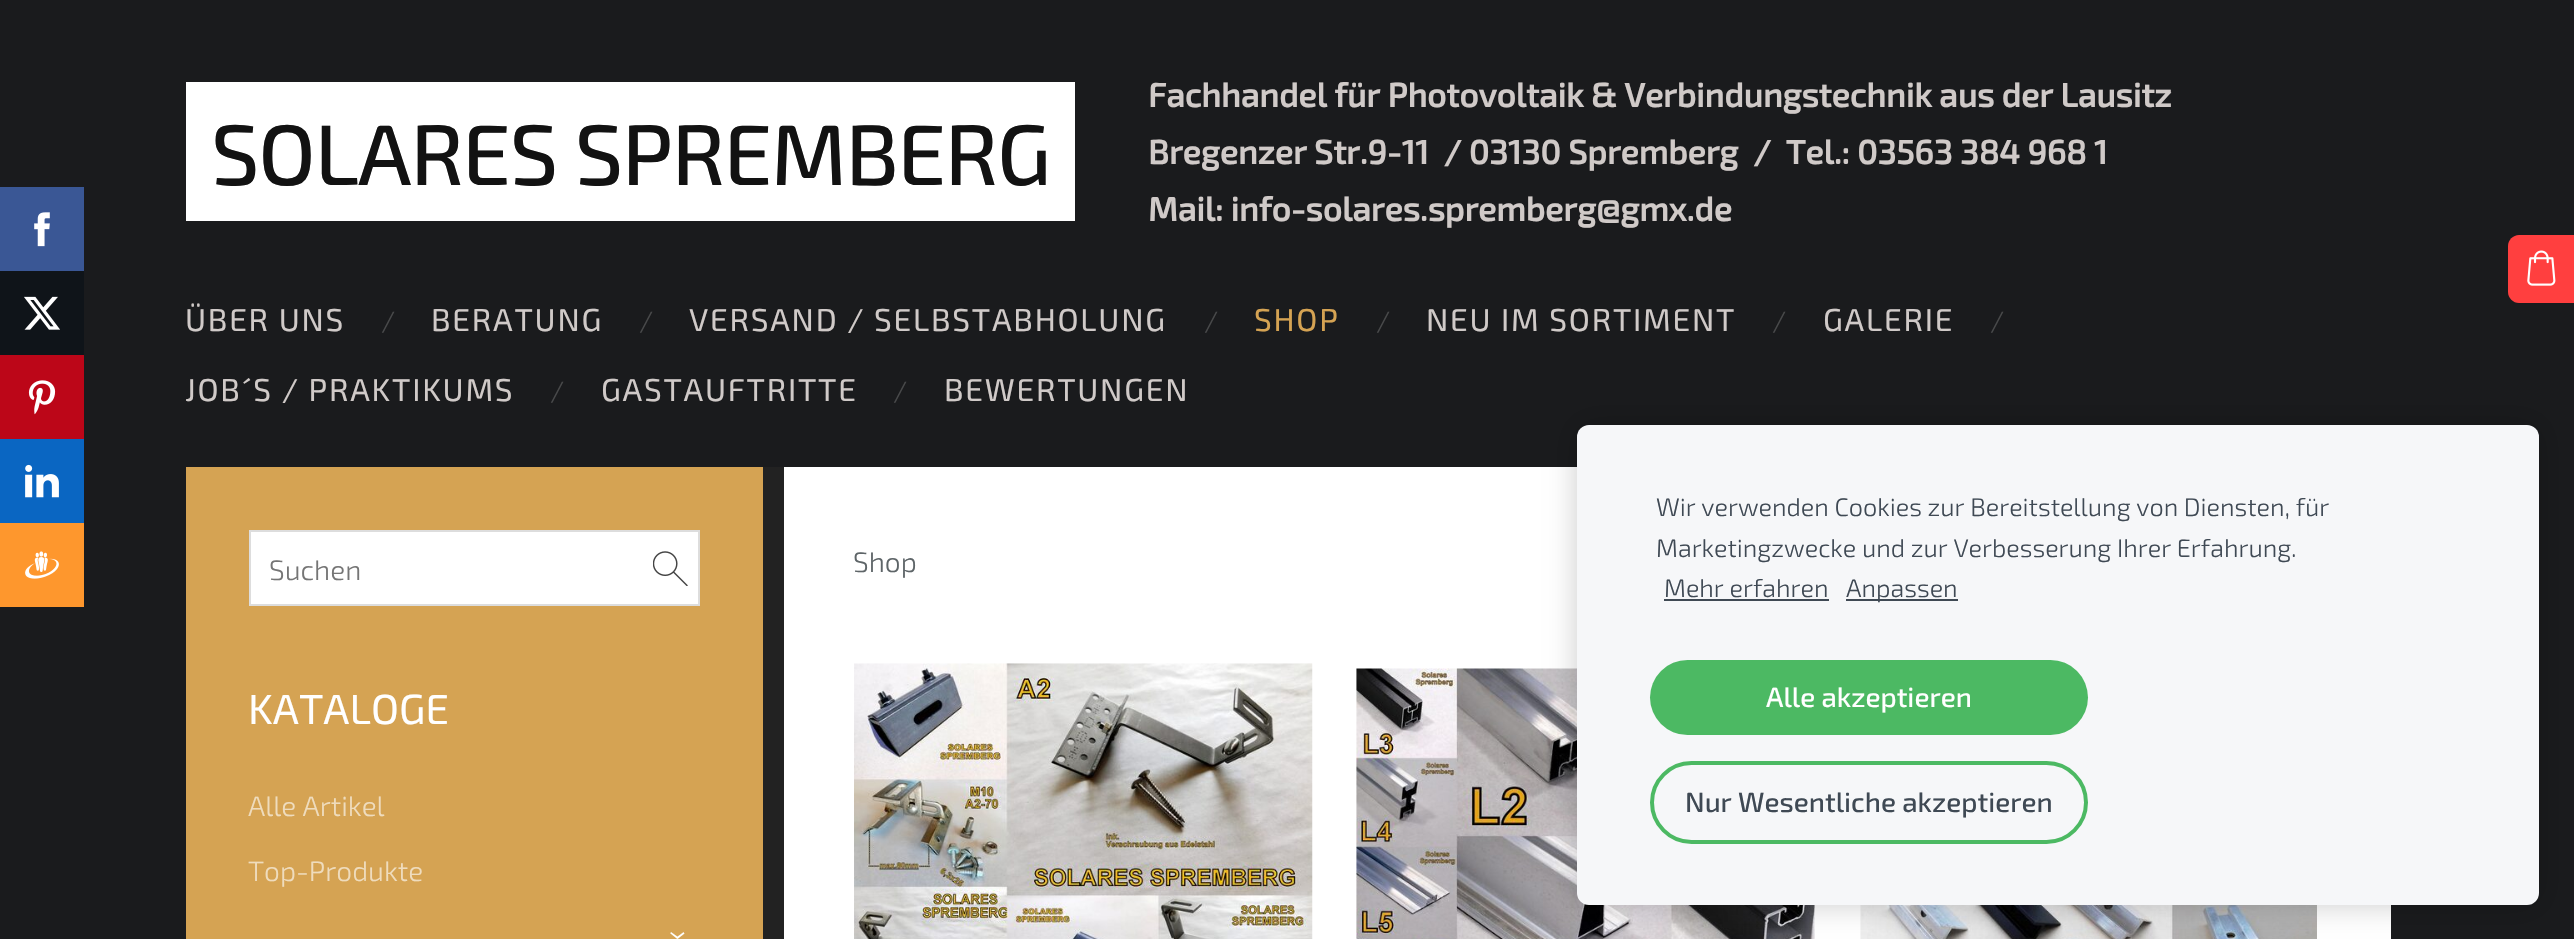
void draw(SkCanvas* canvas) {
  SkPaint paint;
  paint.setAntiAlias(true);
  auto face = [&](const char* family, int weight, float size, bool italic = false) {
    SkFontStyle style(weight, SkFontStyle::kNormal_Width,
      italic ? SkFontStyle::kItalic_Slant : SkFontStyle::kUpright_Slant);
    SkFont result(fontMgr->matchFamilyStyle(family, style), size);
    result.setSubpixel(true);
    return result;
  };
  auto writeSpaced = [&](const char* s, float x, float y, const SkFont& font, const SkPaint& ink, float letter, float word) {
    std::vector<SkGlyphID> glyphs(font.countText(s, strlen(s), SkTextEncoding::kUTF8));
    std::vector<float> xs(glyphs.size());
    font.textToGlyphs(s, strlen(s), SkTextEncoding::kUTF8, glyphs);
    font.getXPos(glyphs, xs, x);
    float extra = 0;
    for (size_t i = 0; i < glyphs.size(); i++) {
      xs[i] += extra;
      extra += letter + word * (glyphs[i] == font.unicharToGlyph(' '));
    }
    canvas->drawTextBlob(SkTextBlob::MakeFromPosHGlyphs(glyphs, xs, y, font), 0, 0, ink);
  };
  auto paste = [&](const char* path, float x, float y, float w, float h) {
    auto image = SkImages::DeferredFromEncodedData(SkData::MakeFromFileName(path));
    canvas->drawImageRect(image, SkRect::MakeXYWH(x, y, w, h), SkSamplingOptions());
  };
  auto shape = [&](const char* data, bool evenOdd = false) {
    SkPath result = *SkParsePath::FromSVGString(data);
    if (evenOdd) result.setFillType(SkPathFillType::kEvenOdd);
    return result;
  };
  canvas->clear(0xff1a1b1d);
  paint.setColor(0xff3a5795);
  canvas->drawRect(SkRect::MakeXYWH(0, 187, 84, 84), paint);
  paste("img/1.png", 34, 212, 16, 35);
  paint.setColor(0xff0f1419);
  canvas->drawRect(SkRect::MakeXYWH(0, 271, 84, 84), paint);
  paste("img/2.png", 24, 296, 36, 34);
  paint.setColor(0xffbc0618);
  canvas->drawRect(SkRect::MakeXYWH(0, 355, 84, 84), paint);
  paste("img/3.png", 28, 380, 28, 35);
  paint.setColor(0xff0a66c2);
  canvas->drawRect(SkRect::MakeXYWH(0, 439, 84, 84), paint);
  paste("img/4.png", 25, 464, 34, 34);
  paint.setColor(0xfffe972d);
  canvas->drawRect(SkRect::MakeXYWH(0, 523, 84, 84), paint);
  paste("img/5.png", 25, 551, 34, 28);
  paint.setColor(0xffffffff);
  canvas->drawRect(SkRect::MakeXYWH(186, 82, 889, 139), paint);
  canvas->drawRect(SkRect::MakeXYWH(784, 467, 1607, 472), paint);
  paint.setColor(0xffff3f3f);
  canvas->drawPath(shape("M2519 235H2574V303H2519C2513 303 2508 298 2508 292V246C2508 240 2513 235 2519 235Z"), paint);
  paste("img/6.png", 2527, 250, 29, 36);
  paint.setColor(0xffd5a353);
  canvas->drawRect(SkRect::MakeXYWH(186, 467, 577, 472), paint);
  paint.setColor(0xff222222);
  canvas->drawRect(SkRect::MakeXYWH(763, 467, 21, 472), paint);
  paint.setColor(0xffffffff);
  canvas->drawRect(SkRect::MakeXYWH(250, 531, 449, 74), paint);
  paint.setStroke(true);
  paint.setStrokeWidth(2);
  paint.setColor(0xffdddddd);
  canvas->drawRect(SkRect::MakeXYWH(250, 531, 449, 74), paint);
  paste("img/7.png", 653, 551, 35, 35);
  paste("img/8.png", 854, 663, 459, 276);
  paste("img/9.png", 1356, 668, 459, 271);
  paste("img/10.png", 1860, 905, 457, 34);
  paint.setStroke(false);
  paint.setColor(0x33000000);
  paint.setMaskFilter(SkMaskFilter::MakeBlur(kNormal_SkBlurStyle, 15));
  canvas->drawRoundRect(SkRect::MakeXYWH(1577, 425, 962, 480), 12, 12, paint);
  paint.setMaskFilter(nullptr);
  paint.setColor(0xfff6f7f9);
  canvas->drawRoundRect(SkRect::MakeXYWH(1577, 425, 962, 480), 12, 12, paint);
  paint.setColor(0xff3f4954);
  canvas->drawRect(SkRect::MakeXYWH(1664, 599, 165, 2), paint);
  canvas->drawRect(SkRect::MakeXYWH(1846, 599, 112, 2), paint);
  paint.setColor(0xff4cb963);
  canvas->drawRoundRect(SkRect::MakeXYWH(1650, 660, 438, 75), 37.5f, 37.5f, paint);
  paint.setStroke(true);
  paint.setStrokeWidth(4);
  canvas->drawRoundRect(SkRect::MakeXYWH(1652, 763, 434, 79), 39.5f, 39.5f, paint);
  auto f0 = face("Exo 2", 500, 85.75f);
  paint.setStroke(false);
  paint.setColor(0xff121212);
  writeSpaced("SOLARES SPREMBERG", 211, 185, f0, paint, -1.25f, 0);
  auto f1 = face("Exo 2", 700, 33.6f);
  paint.setColor(0xffd0cac8);
  {
    const struct { const char* s; float x, y; } items[] = {
      {"Fachhandel für Photovoltaik & Verbindungstechnik aus der Lausitz", 1148, 107},
      {"Bregenzer Str.9-11  / 03130 Spremberg  /  Tel.: 03563 384 968 1", 1148, 164},
      {"Mail: info-solares.spremberg@gmx.de", 1148, 221},
    };
    for (auto [s, x, y] : items) {
      canvas->drawString(s, x, y, f1, paint);
    }
  }
  auto f2 = face("Exo 2", 400, 31.6f);
  writeSpaced("ÜBER UNS", 185, 331, f2, paint, 1.75f, 0);
  auto f3 = face("Exo 2", 300, 28);
  paint.setColor(0xff48494a);
  canvas->drawString("/", 381, 331, f3, paint);
  paint.setColor(0xffd0cac8);
  writeSpaced("BERATUNG", 431, 331, f2, paint, 1.75f, 0);
  paint.setColor(0xff48494a);
  canvas->drawString("/", 639, 331, f3, paint);
  paint.setColor(0xffd0cac8);
  writeSpaced("VERSAND / SELBSTABHOLUNG", 689, 331, f2, paint, 1.75f, 0);
  paint.setColor(0xff48494a);
  canvas->drawString("/", 1204, 331, f3, paint);
  paint.setColor(0xffd5a353);
  writeSpaced("SHOP", 1254, 331, f2, paint, 1.75f, 0);
  paint.setColor(0xff48494a);
  canvas->drawString("/", 1376, 331, f3, paint);
  paint.setColor(0xffd0cac8);
  writeSpaced("NEU IM SORTIMENT", 1426, 331, f2, paint, 1.75f, 0);
  paint.setColor(0xff48494a);
  canvas->drawString("/", 1772, 331, f3, paint);
  paint.setColor(0xffd0cac8);
  writeSpaced("GALERIE", 1823, 331, f2, paint, 1.75f, 0);
  paint.setColor(0xff48494a);
  canvas->drawString("/", 1990, 331, f3, paint);
  paint.setColor(0xffd0cac8);
  writeSpaced("JOB´S / PRAKTIKUMS", 185, 401, f2, paint, 1.75f, 0);
  paint.setColor(0xff48494a);
  canvas->drawString("/", 550, 401, f3, paint);
  paint.setColor(0xffd0cac8);
  writeSpaced("GASTAUFTRITTE", 601, 401, f2, paint, 1.75f, 0);
  paint.setColor(0xff48494a);
  canvas->drawString("/", 893, 401, f3, paint);
  paint.setColor(0xffd0cac8);
  writeSpaced("BEWERTUNGEN", 944, 401, f2, paint, 1.75f, 0);
  paint.setColor(0xff757575);
  canvas->drawString("Suchen", 269, 580, f3, paint);
  auto f4 = face("Exo 2", 400, 42);
  paint.setColor(0xffffffff);
  canvas->drawString("KATALOGE", 248, 724, f4, paint);
  paint.setColor(0xffefdcbd);
  canvas->drawString("Alle Artikel", 248, 816, f3, paint);
  canvas->drawString("Top-Produkte", 248, 881, f3, paint);
  auto f5 = face("Exo 2", 300, 33.6f);
  paint.setColor(0xffffffff);
  canvas->save();
  canvas->rotate(90, 669, 931);
  canvas->drawString("›", 669, 931, f5, paint);
  canvas->restore();
  paint.setColor(0xff5e6568);
  canvas->drawString("Shop", 853, 572, f3, paint);
  auto f6 = face("Exo 2", 300, 25.2f);
  paint.setColor(0xff3f4954);
  {
    const struct { const char* s; float x, y; } items[] = {
      {"Wir verwenden Cookies zur Bereitstellung von Diensten, für", 1656, 516},
      {"Marketingzwecke und zur Verbesserung Ihrer Erfahrung.", 1656, 557},
      {"Mehr erfahren", 1664, 597},
      {"Anpassen", 1846, 597},
    };
    for (auto [s, x, y] : items) {
      canvas->drawString(s, x, y, f6, paint);
    }
  }
  auto f7 = face("Exo 2", 500, 27.75f);
  paint.setColor(0xffffffff);
  canvas->drawString("Alle akzeptieren", 1766, 707, f7, paint);
  paint.setColor(0xff3f4954);
  canvas->drawString("Nur Wesentliche akzeptieren", 1685, 812, f7, paint);
}
